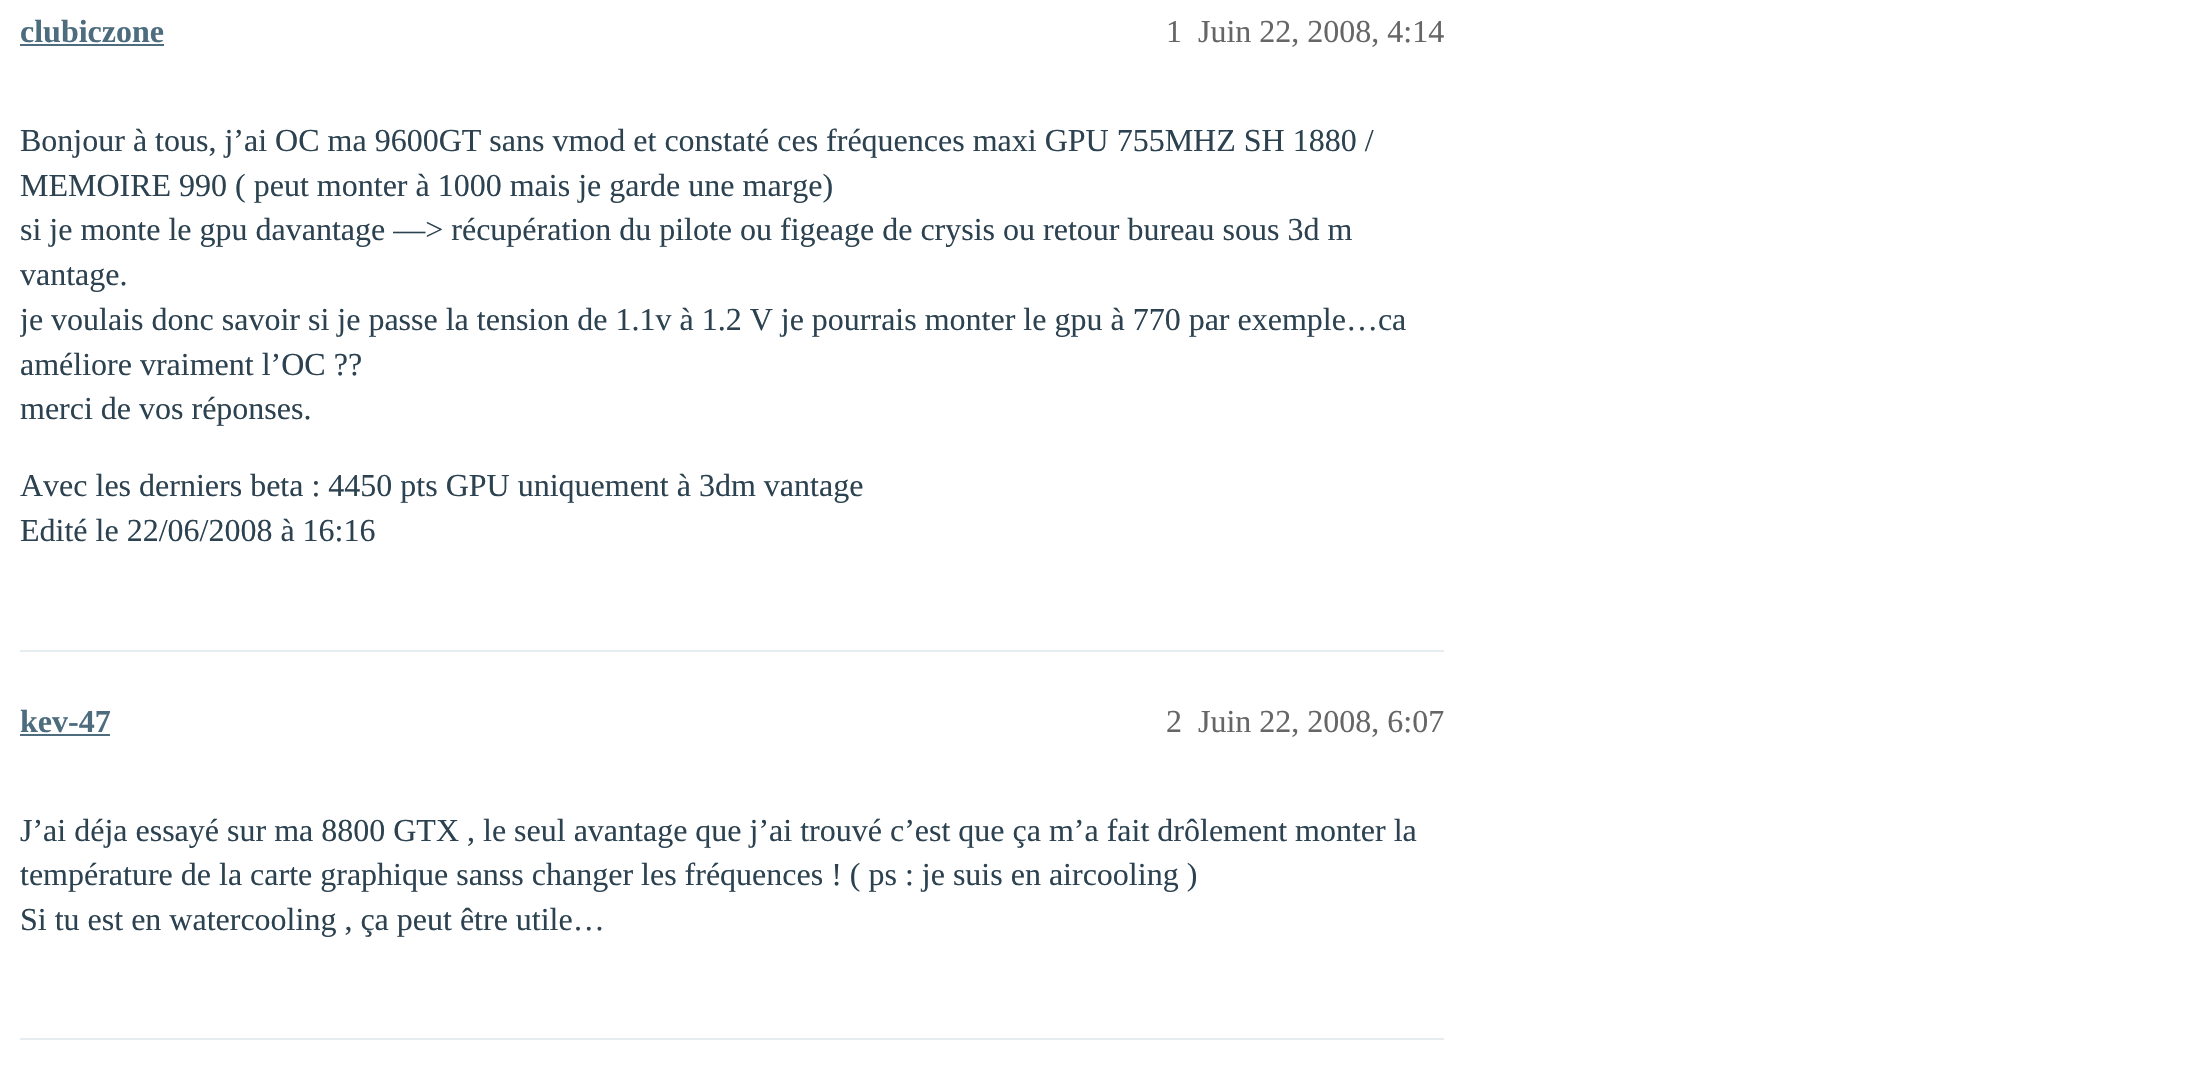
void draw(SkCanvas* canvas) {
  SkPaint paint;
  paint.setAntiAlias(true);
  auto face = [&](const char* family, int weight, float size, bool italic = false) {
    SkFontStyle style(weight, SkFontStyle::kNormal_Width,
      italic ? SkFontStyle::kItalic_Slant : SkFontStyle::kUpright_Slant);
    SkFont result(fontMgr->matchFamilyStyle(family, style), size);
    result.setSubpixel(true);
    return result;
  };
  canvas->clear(0xffffffff);
  {
    const struct { float x, y, w, h; SkColor color; } items[] = {
      {20, 44, 144, 2, 0xff4d6d7e},
      {20, 650, 1424, 2, 0xffe6edf1},
      {20, 734, 90, 2, 0xff4d6d7e},
      {20, 1038, 1424, 2, 0xffe6edf1},
    };
    for (auto [x, y, w, h, color] : items) {
      paint.setColor(color);
      canvas->drawRect(SkRect::MakeXYWH(x, y, w, h), paint);
    }
  }
  auto f0 = face("Liberation Serif", 700, 32);
  paint.setColor(0xff4d6d7e);
  canvas->drawString("clubiczone", 20, 42, f0, paint);
  auto f1 = face("Liberation Serif", 400, 32);
  paint.setColor(0xff666666);
  canvas->drawString("1", 1166, 42, f1, paint);
  canvas->drawString("Juin 22, 2008, 4:14", 1198, 42, f1, paint);
  paint.setColor(0xff2c4250);
  {
    const struct { const char* s; float x, y; } items[] = {
      {"Bonjour à tous, j’ai OC ma 9600GT sans vmod et constaté ces fréquences maxi GPU 755MHZ SH 1880 /", 20, 151},
      {"MEMOIRE 990 ( peut monter à 1000 mais je garde une marge)", 20, 196},
      {"si je monte le gpu davantage —> récupération du pilote ou figeage de crysis ou retour bureau sous 3d m", 20, 240},
      {"vantage.", 20, 285},
    };
    for (auto [s, x, y] : items) {
      canvas->drawString(s, x, y, f1, paint);
    }
  }
  canvas->save();
  canvas->clipRect(SkRect::MakeXYWH(20, 86, 1424, 500));
  canvas->drawString("je voulais donc savoir si je passe la tension de 1.1v à 1.2 V je pourrais monter le gpu à 770 par exemple…ca", 20, 330, f1, paint);
  canvas->restore();
  {
    const struct { const char* s; float x, y; } items[] = {
      {"améliore vraiment l’OC ?\077", 20, 375},
      {"merci de vos réponses.", 20, 419},
      {"Avec les derniers beta : 4450 pts GPU uniquement à 3dm vantage", 20, 496},
      {"Edité le 22/06/2008 à 16:16", 20, 541},
    };
    for (auto [s, x, y] : items) {
      canvas->drawString(s, x, y, f1, paint);
    }
  }
  paint.setColor(0xff4d6d7e);
  canvas->drawString("kev-47", 20, 732, f0, paint);
  paint.setColor(0xff666666);
  canvas->drawString("2", 1166, 732, f1, paint);
  canvas->drawString("Juin 22, 2008, 6:07", 1198, 732, f1, paint);
  paint.setColor(0xff2c4250);
  {
    const struct { const char* s; float x, y; } items[] = {
      {"J’ai déja essayé sur ma 8800 GTX , le seul avantage que j’ai trouvé c’est que ça m’a fait drôlement monter la", 20, 841},
      {"température de la carte graphique sanss changer les fréquences ! ( ps : je suis en aircooling )", 20, 885},
      {"Si tu est en watercooling , ça peut être utile…", 20, 930},
    };
    for (auto [s, x, y] : items) {
      canvas->drawString(s, x, y, f1, paint);
    }
  }
}
